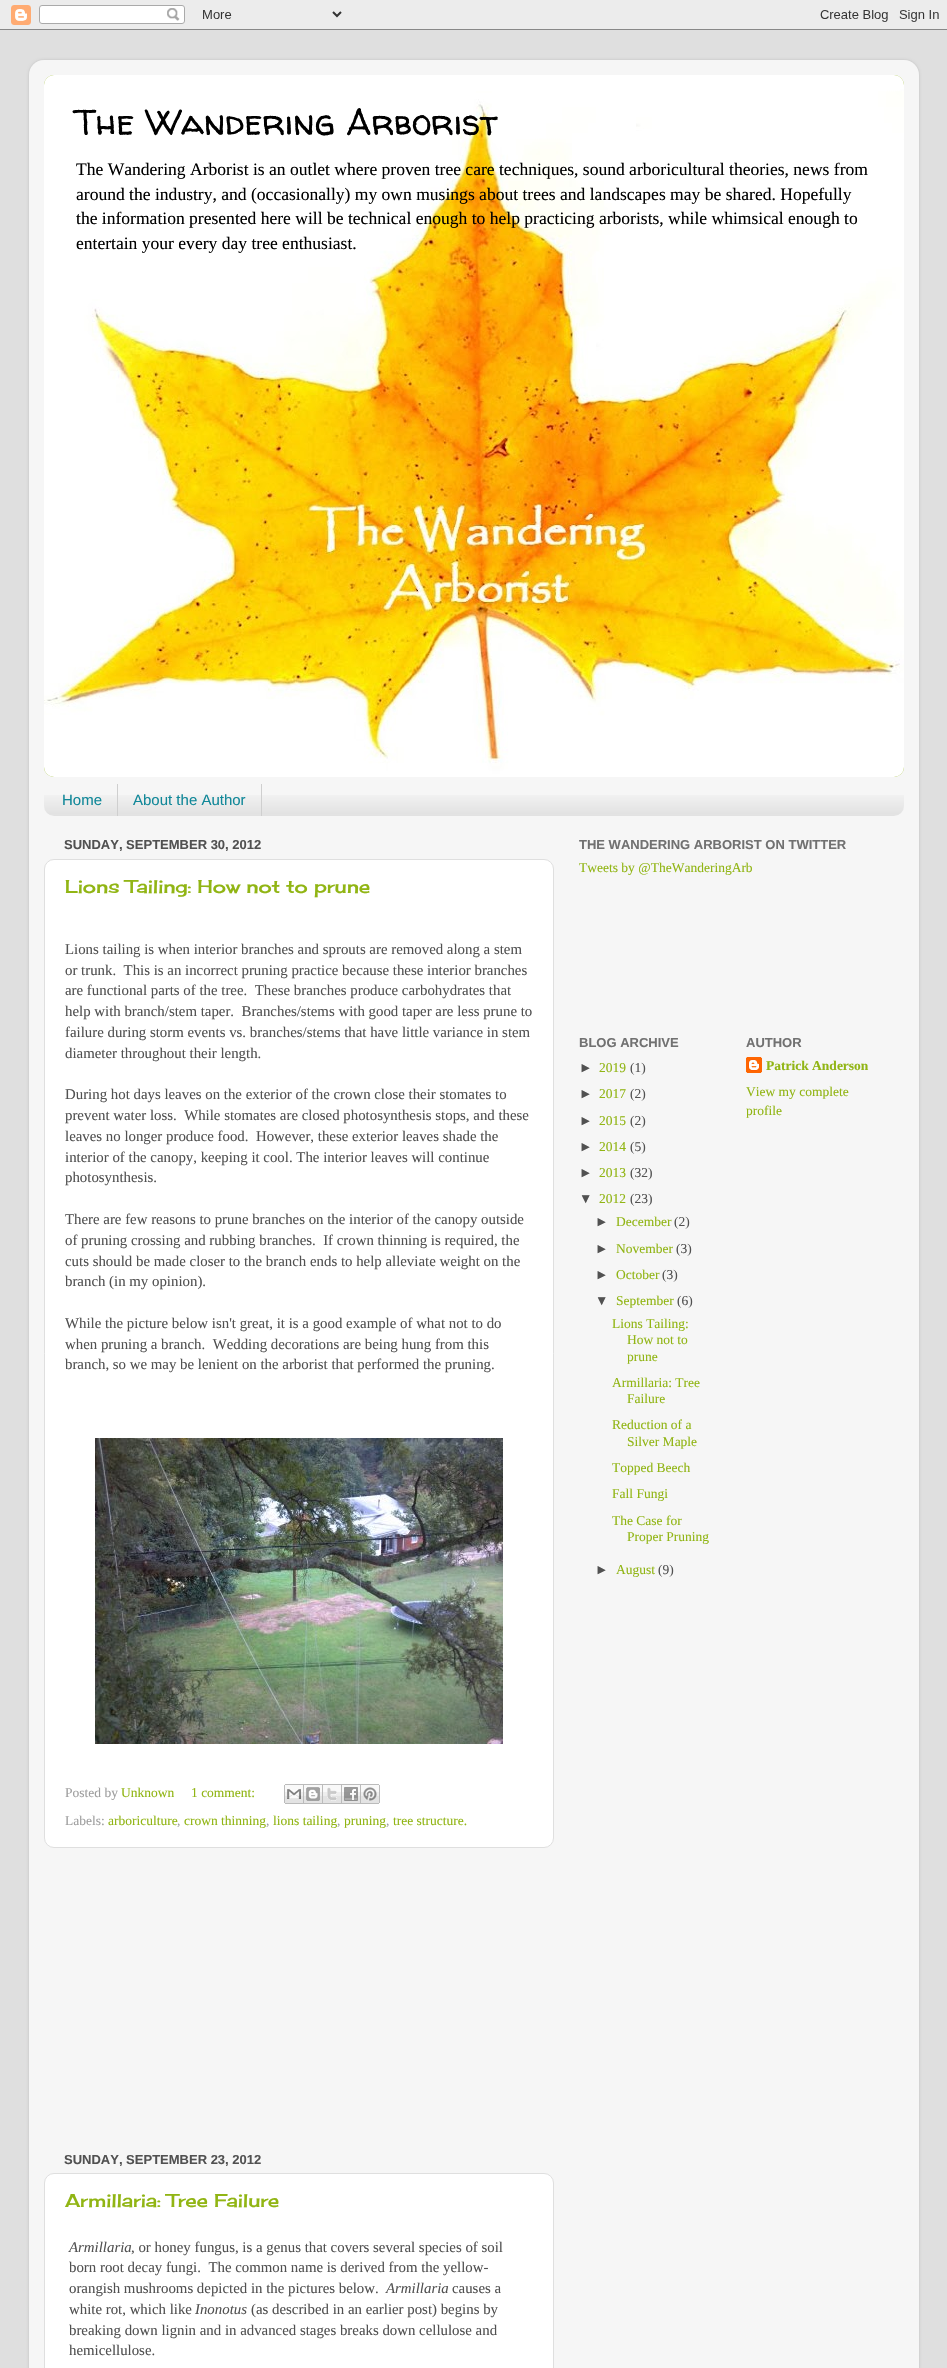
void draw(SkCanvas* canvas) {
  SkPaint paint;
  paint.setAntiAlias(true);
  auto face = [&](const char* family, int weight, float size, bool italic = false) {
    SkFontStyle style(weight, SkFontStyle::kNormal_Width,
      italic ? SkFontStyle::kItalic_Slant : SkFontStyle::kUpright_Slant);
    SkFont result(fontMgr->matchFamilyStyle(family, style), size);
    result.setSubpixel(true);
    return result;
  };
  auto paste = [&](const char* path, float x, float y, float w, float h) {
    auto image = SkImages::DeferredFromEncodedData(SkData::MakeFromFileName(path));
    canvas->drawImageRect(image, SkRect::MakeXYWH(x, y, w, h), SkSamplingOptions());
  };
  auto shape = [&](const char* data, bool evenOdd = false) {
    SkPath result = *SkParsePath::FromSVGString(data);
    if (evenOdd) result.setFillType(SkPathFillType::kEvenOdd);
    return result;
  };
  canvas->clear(0xffdfdfdf);
  paste("img/1.png", 0, 0, 947, 30);
  canvas->save();
  canvas->clipPath(shape("M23 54H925V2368H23ZM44 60H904C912.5 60 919 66.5 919 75V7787C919 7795.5 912.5 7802 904 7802H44C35.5 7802 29 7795.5 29 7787V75C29 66.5 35.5 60 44 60Z", true), true);
  paint.setColor(0x26000000);
  paint.setMaskFilter(SkMaskFilter::MakeBlur(kNormal_SkBlurStyle, 1.5f));
  canvas->drawRoundRect(SkRect::MakeXYWH(29, 60, 890, 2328), 15, 15, paint);
  paint.setMaskFilter(nullptr);
  canvas->restore();
  paste("img/2.png", 29, 60, 890, 2308);
  paint.setColor(0xff91b514);
  canvas->drawRoundRect(SkRect::MakeXYWH(44, 75, 860, 702), 10, 10, paint);
  paste("img/3.png", 44, 75, 860, 10);
  paste("img/4.png", 44, 75, 860, 702);
  paste("img/5.png", 44, 795, 860, 21);
  paint.setColor(0xffcfcfcf);
  canvas->drawRect(SkRect::MakeXYWH(117, 784, 1, 32), paint);
  canvas->drawRect(SkRect::MakeXYWH(261, 784, 1, 32), paint);
  paint.setColor(0xffffffff);
  canvas->drawRoundRect(SkRect::MakeXYWH(44.5f, 859.5f, 509, 988), 9.5f, 9.5f, paint);
  paint.setStroke(true);
  paint.setStrokeWidth(1);
  paint.setColor(0xffdfdfdf);
  canvas->drawRoundRect(SkRect::MakeXYWH(44.5f, 859.5f, 509, 988), 9.5f, 9.5f, paint);
  paste("img/6.png", 95, 1438, 408, 306);
  paste("img/7.png", 284, 1784, 20, 20);
  paste("img/8.png", 304, 1784, 19, 20);
  paste("img/9.png", 323, 1784, 19, 20);
  paste("img/10.png", 342, 1784, 19, 20);
  paste("img/11.png", 361, 1784, 19, 20);
  paint.setStroke(false);
  paint.setColor(0xffffffff);
  canvas->drawRoundRect(SkRect::MakeXYWH(44.5f, 2173.5f, 509, 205), 9.5f, 9.5f, paint);
  paint.setStroke(true);
  paint.setColor(0xffdfdfdf);
  canvas->drawRoundRect(SkRect::MakeXYWH(44.5f, 2173.5f, 509, 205), 9.5f, 9.5f, paint);
  paste("img/12.png", 746, 1057, 16, 16);
  auto f0 = face("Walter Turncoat", 400, 36);
  paint.setStroke(false);
  paint.setColor(0xff000000);
  canvas->drawString("The Wandering Arborist", 74, 135, f0, paint);
  auto f1 = face("Liberation Serif", 400, 17.55f);
  {
    const struct { const char* s; float x, y; } items[] = {
      {"The Wandering Arborist is an outlet where proven tree care techniques, sound arboricultural theories, news from", 76, 175},
      {"around the industry, and (occasionally) my own musings about trees and landscapes may be shared. Hopefully", 76, 200},
      {"the information presented here will be technical enough to help practicing arborists, while whimsical enough to", 76, 224},
      {"entertain your every day tree enthusiast.", 76, 249},
    };
    for (auto [s, x, y] : items) {
      canvas->drawString(s, x, y, f1, paint);
    }
  }
  auto f2 = face("Liberation Sans", 400, 15);
  paint.setColor(0xff118899);
  canvas->drawString("Home", 62, 805, f2, paint);
  canvas->drawString("About the Author", 133, 805, f2, paint);
  auto f3 = face("Liberation Sans", 700, 13);
  paint.setColor(0xff515151);
  canvas->drawString("SUNDAY, SEPTEMBER 30, 2012", 64, 849, f3, paint);
  auto f4 = face("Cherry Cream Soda", 400, 18);
  paint.setColor(0xff91b514);
  canvas->drawString("Lions Tailing: How not to prune", 65, 893, f4, paint);
  auto f5 = face("Liberation Serif", 400, 14.85f);
  paint.setColor(0xff515151);
  {
    const struct { const char* s; float x, y; } items[] = {
      {"Lions tailing is when interior branches and sprouts are removed along a stem", 65, 954},
      {"or trunk.  This is an incorrect pruning practice because these interior branches", 65, 975},
      {"are functional parts of the tree.  These branches produce carbohydrates that", 65, 995},
      {"help with branch/stem taper.  Branches/stems with good taper are less prune to", 65, 1016},
      {"failure during storm events vs. branches/stems that have little variance in stem", 65, 1037},
      {"diameter throughout their length.", 65, 1058},
      {"During hot days leaves on the exterior of the crown close their stomates to", 65, 1099},
      {"prevent water loss.  While stomates are closed photosynthesis stops, and these", 65, 1120},
      {"leaves no longer produce food.  However, these exterior leaves shade the", 65, 1141},
      {"interior of the canopy, keeping it cool. The interior leaves will continue", 65, 1162},
      {"photosynthesis.", 65, 1182},
      {"There are few reasons to prune branches on the interior of the canopy outside", 65, 1224},
      {"of pruning crossing and rubbing branches.  If crown thinning is required, the", 65, 1245},
      {"cuts should be made closer to the branch ends to help alleviate weight on the", 65, 1266},
      {"branch (in my opinion).", 65, 1286},
      {"While the picture below isn't great, it is a good example of what not to do", 65, 1328},
      {"when pruning a branch.  Wedding decorations are being hung from this", 65, 1349},
      {"branch, so we may be lenient on the arborist that performed the pruning.", 65, 1369},
    };
    for (auto [s, x, y] : items) {
      canvas->drawString(s, x, y, f5, paint);
    }
  }
  auto f6 = face("Liberation Serif", 400, 13.5f);
  paint.setColor(0xff9e9e9e);
  canvas->drawString("Posted by", 65, 1797, f6, paint);
  paint.setColor(0xff91b514);
  canvas->drawString("Unknown", 121, 1797, f6, paint);
  canvas->drawString("1 comment:", 191, 1797, f6, paint);
  paint.setColor(0xff9e9e9e);
  canvas->drawString("Labels:", 65, 1825, f6, paint);
  paint.setColor(0xff91b514);
  canvas->drawString("arboriculture", 108, 1825, f6, paint);
  paint.setColor(0xff9e9e9e);
  canvas->drawString(",", 177, 1825, f6, paint);
  paint.setColor(0xff91b514);
  canvas->drawString("crown thinning", 184, 1825, f6, paint);
  paint.setColor(0xff9e9e9e);
  canvas->drawString(",", 266, 1825, f6, paint);
  paint.setColor(0xff91b514);
  canvas->drawString("lions tailing", 273, 1825, f6, paint);
  paint.setColor(0xff9e9e9e);
  canvas->drawString(",", 337, 1825, f6, paint);
  paint.setColor(0xff91b514);
  canvas->drawString("pruning", 344, 1825, f6, paint);
  paint.setColor(0xff9e9e9e);
  canvas->drawString(",", 386, 1825, f6, paint);
  paint.setColor(0xff91b514);
  canvas->drawString("tree structure.", 393, 1825, f6, paint);
  paint.setColor(0xff515151);
  canvas->drawString("SUNDAY, SEPTEMBER 23, 2012", 64, 2164, f3, paint);
  paint.setColor(0xff91b514);
  canvas->drawString("Armillaria: Tree Failure", 65, 2207, f4, paint);
  auto f7 = face("Liberation Serif", 400, 14.85f, true);
  paint.setColor(0xff515151);
  canvas->drawString("Armillaria", 69, 2252, f7, paint);
  {
    const struct { const char* s; float x, y; } items[] = {
      {", or honey fungus, is a genus that covers several species of soil", 131, 2252},
      {"born root decay fungi.  The common name is derived from the yellow-", 69, 2272},
      {"orangish mushrooms depicted in the pictures below.", 69, 2293},
    };
    for (auto [s, x, y] : items) {
      canvas->drawString(s, x, y, f5, paint);
    }
  }
  canvas->drawString("Armillaria", 386, 2293, f7, paint);
  canvas->drawString("causes a", 452, 2293, f5, paint);
  canvas->drawString("white rot, which like", 69, 2314, f5, paint);
  canvas->drawString("Inonotus", 195, 2314, f7, paint);
  {
    const struct { const char* s; float x, y; } items[] = {
      {"(as described in an earlier post) begins by", 251, 2314},
      {"breaking down lignin and in advanced stages breaks down cellulose and", 69, 2335},
      {"hemicellulose.", 69, 2355},
    };
    for (auto [s, x, y] : items) {
      canvas->drawString(s, x, y, f5, paint);
    }
  }
  paint.setColor(0xff717171);
  canvas->drawString("THE WANDERING ARBORIST ON TWITTER", 579, 849, f3, paint);
  paint.setColor(0xff91b514);
  canvas->drawString("Tweets by @TheWanderingArb", 579, 872, f6, paint);
  paint.setColor(0xff717171);
  canvas->drawString("BLOG ARCHIVE", 579, 1047, f3, paint);
  auto f8 = face("Liberation Sans", 400, 13.5f);
  paint.setColor(0xff515151);
  canvas->drawString("►", 579, 1072, f8, paint);
  paint.setColor(0xff91b514);
  canvas->drawString("2019", 599, 1072, f6, paint);
  paint.setColor(0xff515151);
  canvas->drawString("(1)", 630, 1072, f6, paint);
  canvas->drawString("►", 579, 1098, f8, paint);
  paint.setColor(0xff91b514);
  canvas->drawString("2017", 599, 1098, f6, paint);
  paint.setColor(0xff515151);
  canvas->drawString("(2)", 630, 1098, f6, paint);
  canvas->drawString("►", 579, 1125, f8, paint);
  paint.setColor(0xff91b514);
  canvas->drawString("2015", 599, 1125, f6, paint);
  paint.setColor(0xff515151);
  canvas->drawString("(2)", 630, 1125, f6, paint);
  canvas->drawString("►", 579, 1151, f8, paint);
  paint.setColor(0xff91b514);
  canvas->drawString("2014", 599, 1151, f6, paint);
  paint.setColor(0xff515151);
  canvas->drawString("(5)", 630, 1151, f6, paint);
  canvas->drawString("►", 579, 1177, f8, paint);
  paint.setColor(0xff91b514);
  canvas->drawString("2013", 599, 1177, f6, paint);
  paint.setColor(0xff515151);
  canvas->drawString("(32)", 630, 1177, f6, paint);
  canvas->drawString("▼", 579, 1203, f8, paint);
  paint.setColor(0xff91b514);
  canvas->drawString("2012", 599, 1203, f6, paint);
  paint.setColor(0xff515151);
  canvas->drawString("(23)", 630, 1203, f6, paint);
  canvas->drawString("►", 595, 1226, f8, paint);
  paint.setColor(0xff91b514);
  canvas->drawString("December", 616, 1226, f6, paint);
  paint.setColor(0xff515151);
  canvas->drawString("(2)", 674, 1226, f6, paint);
  canvas->drawString("►", 595, 1253, f8, paint);
  paint.setColor(0xff91b514);
  canvas->drawString("November", 616, 1253, f6, paint);
  paint.setColor(0xff515151);
  canvas->drawString("(3)", 676, 1253, f6, paint);
  canvas->drawString("►", 595, 1279, f8, paint);
  paint.setColor(0xff91b514);
  canvas->drawString("October", 616, 1279, f6, paint);
  paint.setColor(0xff515151);
  canvas->drawString("(3)", 662, 1279, f6, paint);
  canvas->drawString("▼", 595, 1305, f8, paint);
  paint.setColor(0xff91b514);
  canvas->drawString("September", 616, 1305, f6, paint);
  paint.setColor(0xff515151);
  canvas->drawString("(6)", 677, 1305, f6, paint);
  paint.setColor(0xff91b514);
  {
    const struct { const char* s; float x, y; } items[] = {
      {"Lions Tailing:", 612, 1328},
      {"How not to", 627, 1344},
      {"prune", 627, 1361},
      {"Armillaria: Tree", 612, 1387},
      {"Failure", 627, 1403},
      {"Reduction of a", 612, 1429},
      {"Silver Maple", 627, 1446},
      {"Topped Beech", 612, 1472},
      {"Fall Fungi", 612, 1498},
      {"The Case for", 612, 1525},
      {"Proper Pruning", 627, 1541},
    };
    for (auto [s, x, y] : items) {
      canvas->drawString(s, x, y, f6, paint);
    }
  }
  paint.setColor(0xff515151);
  canvas->drawString("►", 595, 1574, f8, paint);
  paint.setColor(0xff91b514);
  canvas->drawString("August", 616, 1574, f6, paint);
  paint.setColor(0xff515151);
  canvas->drawString("(9)", 658, 1574, f6, paint);
  paint.setColor(0xff717171);
  canvas->drawString("AUTHOR", 746, 1047, f3, paint);
  auto f9 = face("Liberation Serif", 700, 13.5f);
  paint.setColor(0xff91b514);
  canvas->drawString("Patrick Anderson", 766, 1070, f9, paint);
  canvas->drawString("View my complete", 746, 1096, f6, paint);
  canvas->drawString("profile", 746, 1115, f6, paint);
}
